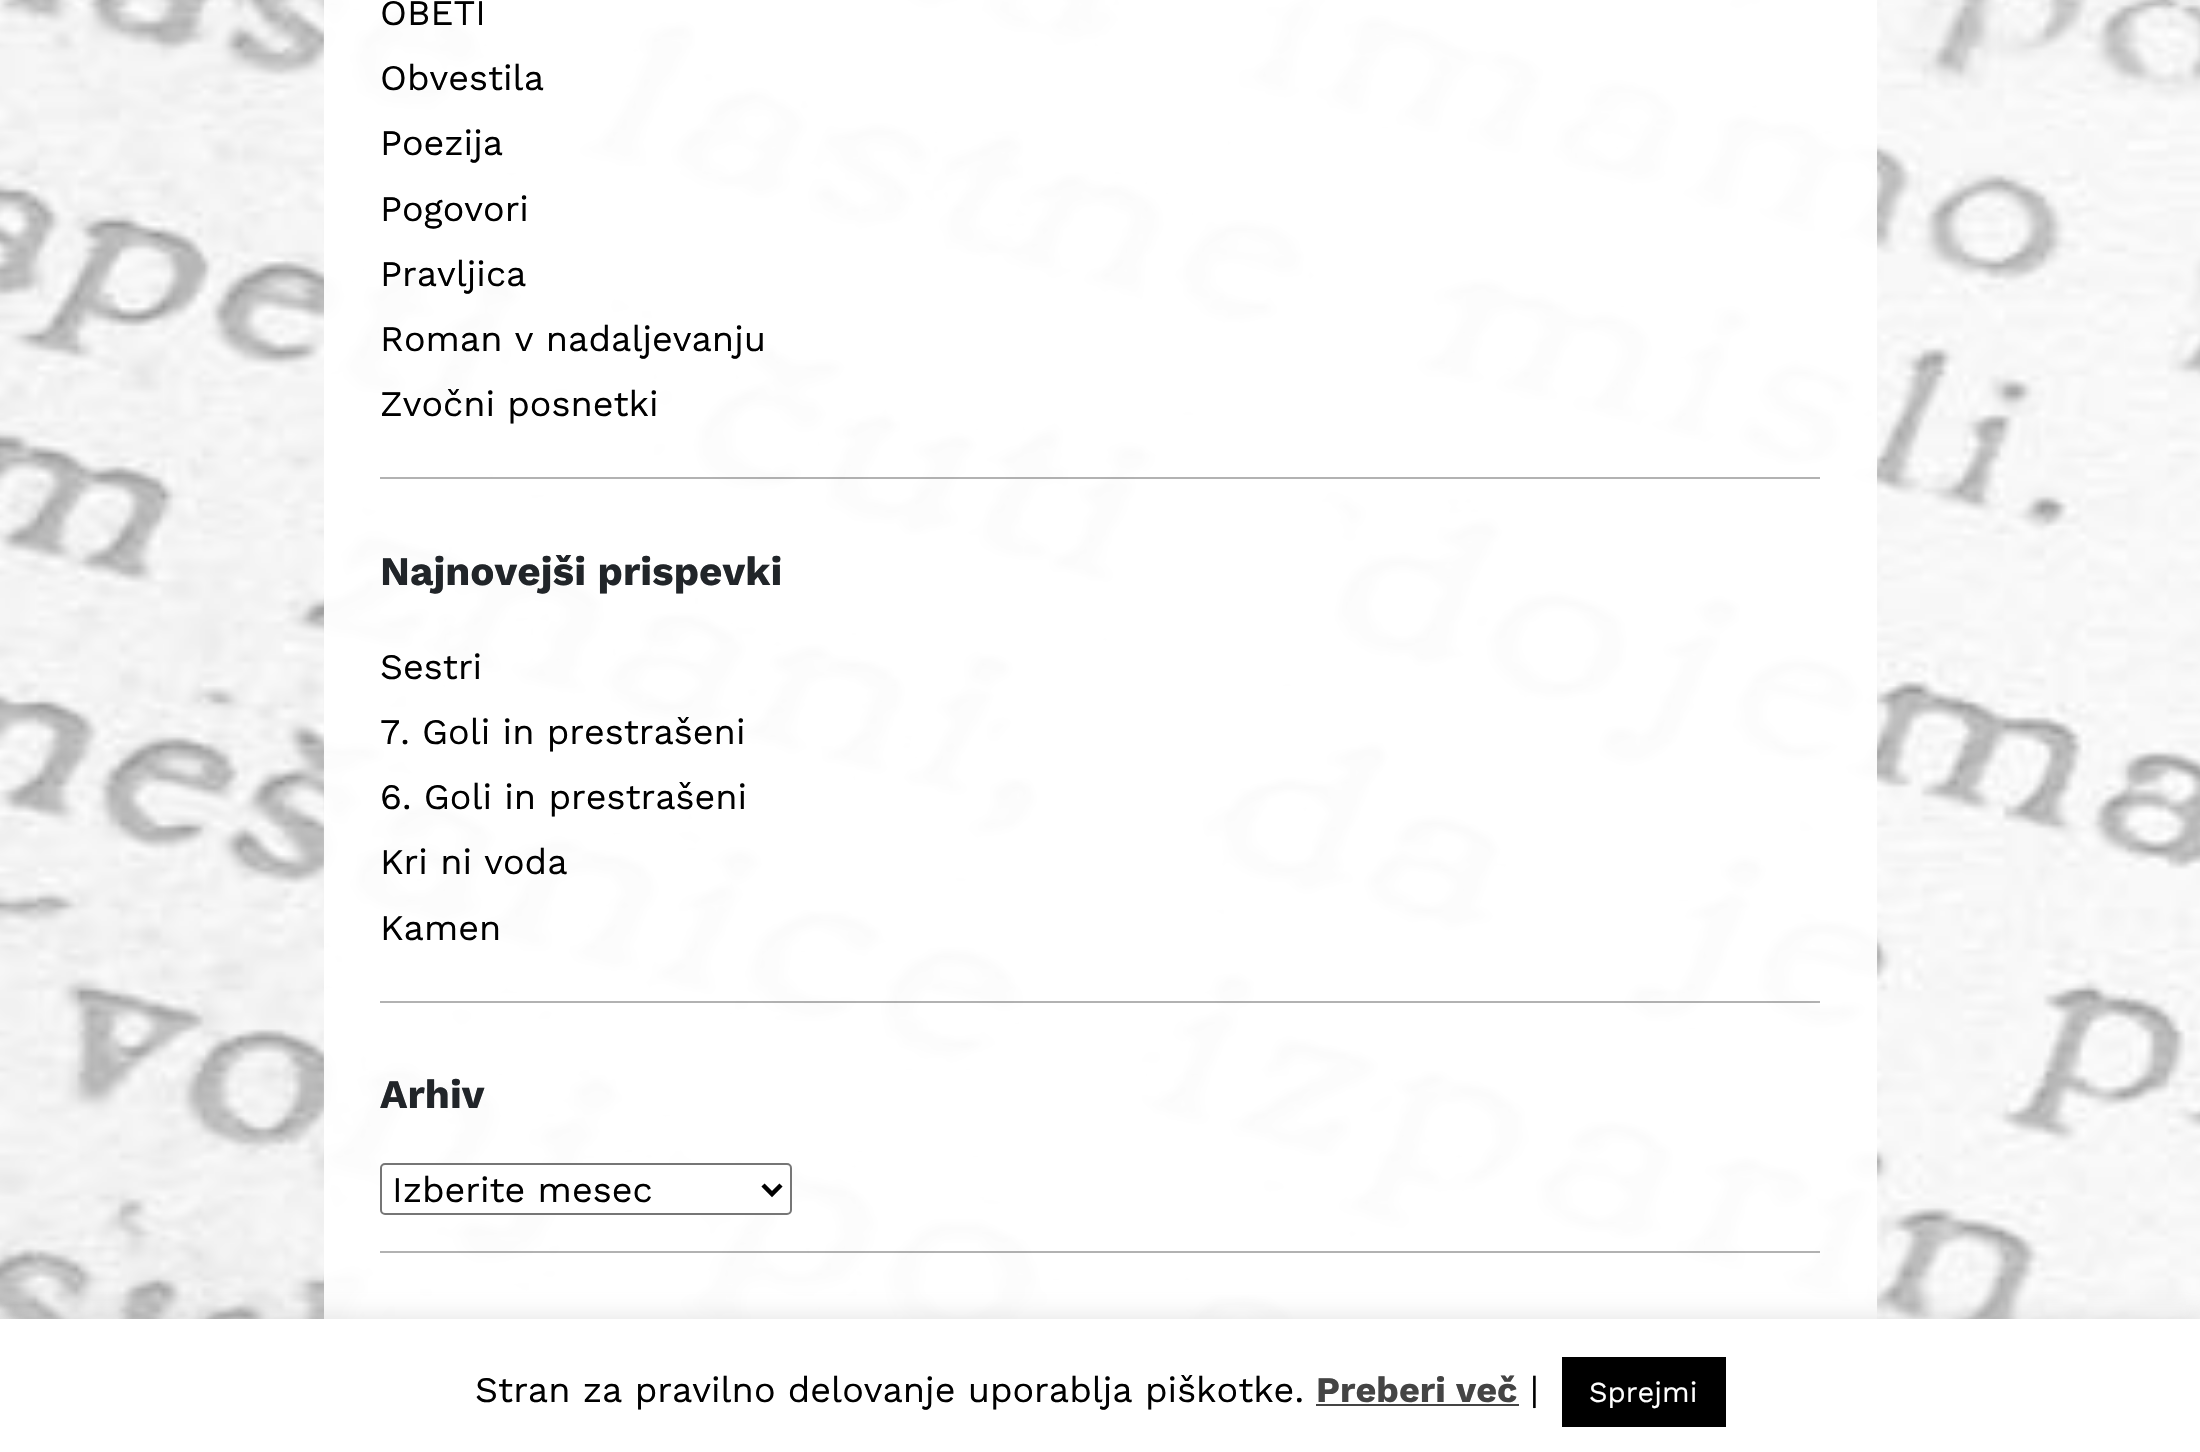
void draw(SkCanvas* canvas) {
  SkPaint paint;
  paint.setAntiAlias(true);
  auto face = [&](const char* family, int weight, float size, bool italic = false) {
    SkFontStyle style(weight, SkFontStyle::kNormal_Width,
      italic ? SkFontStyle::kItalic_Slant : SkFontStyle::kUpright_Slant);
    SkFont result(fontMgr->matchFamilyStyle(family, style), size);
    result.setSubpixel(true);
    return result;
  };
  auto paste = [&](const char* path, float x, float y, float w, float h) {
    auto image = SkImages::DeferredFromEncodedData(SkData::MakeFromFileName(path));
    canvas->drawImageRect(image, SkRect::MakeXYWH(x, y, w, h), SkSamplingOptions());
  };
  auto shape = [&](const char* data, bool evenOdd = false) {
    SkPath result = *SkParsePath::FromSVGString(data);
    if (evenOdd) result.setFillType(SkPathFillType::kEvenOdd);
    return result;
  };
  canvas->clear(0xffffffff);
  paste("img/1.png", 0, 0, 2200, 1319);
  {
    const struct { float x, y, w, h; SkColor color; } items[] = {
      {324, 0, 1553, 1319, 0xf2ffffff},
      {380, 477, 1440, 2, 0x4d000000},
      {380, 1001, 1440, 2, 0x4d000000},
      {380, 1251, 1440, 2, 0x4d000000},
    };
    for (auto [x, y, w, h, color] : items) {
      paint.setColor(color);
      canvas->drawRect(SkRect::MakeXYWH(x, y, w, h), paint);
    }
  }
  paint.setColor(0xffffffff);
  canvas->drawRoundRect(SkRect::MakeXYWH(381, 1164, 410, 50), 4, 4, paint);
  paint.setStroke(true);
  paint.setStrokeWidth(2);
  paint.setColor(0xff767676);
  canvas->drawRoundRect(SkRect::MakeXYWH(381, 1164, 410, 50), 4, 4, paint);
  paint.setStrokeWidth(4.5f);
  paint.setColor(0xff000000);
  canvas->drawPath(shape("M763 1185L772 1194L781 1185"), paint);
  paint.setStroke(false);
  paint.setColor(0x4dacabab);
  paint.setMaskFilter(SkMaskFilter::MakeBlur(kNormal_SkBlurStyle, 11));
  canvas->drawRect(SkRect::MakeXYWH(0, 1316, 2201, 135), paint);
  paint.setMaskFilter(nullptr);
  {
    const struct { float x, y, w, h; SkColor color; } items[] = {
      {0, 1319, 2200, 133, 0xffffffff},
      {1316, 1404, 203, 2, 0xff444444},
      {1562, 1357, 164, 70, 0xff000000},
    };
    for (auto [x, y, w, h, color] : items) {
      paint.setColor(color);
      canvas->drawRect(SkRect::MakeXYWH(x, y, w, h), paint);
    }
  }
  auto f0 = face("Work Sans", 400, 36);
  {
    const struct { const char* s; float x, y; } items[] = {
      {"OBETI", 380, 25},
      {"Obvestila", 380, 90},
      {"Poezija", 380, 155},
      {"Pogovori", 380, 221},
      {"Pravljica", 380, 286},
      {"Roman v nadaljevanju", 380, 351},
      {"Zvočni posnetki", 380, 416},
    };
    for (auto [s, x, y] : items) {
      canvas->drawString(s, x, y, f0, paint);
    }
  }
  auto f1 = face("Work Sans", 700, 40.5f);
  paint.setColor(0xff212529);
  canvas->drawString("Najnovejši prispevki", 380, 585, f1, paint);
  paint.setColor(0xff000000);
  {
    const struct { const char* s; float x, y; } items[] = {
      {"Sestri", 380, 679},
      {"7. Goli in prestrašeni", 380, 744},
      {"6. Goli in prestrašeni", 380, 809},
      {"Kri ni voda", 380, 874},
      {"Kamen", 380, 940},
    };
    for (auto [s, x, y] : items) {
      canvas->drawString(s, x, y, f0, paint);
    }
  }
  paint.setColor(0xff212529);
  canvas->drawString("Arhiv", 380, 1108, f1, paint);
  paint.setColor(0xff000000);
  canvas->drawString("Izberite mesec", 392, 1202, f0, paint);
  canvas->drawString("Stran za pravilno delovanje uporablja piškotke.", 475, 1402, f0, paint);
  auto f2 = face("Work Sans", 700, 36);
  paint.setColor(0xff444444);
  canvas->drawString("Preberi več", 1316, 1402, f2, paint);
  paint.setColor(0xff000000);
  canvas->drawString("|", 1530, 1402, f0, paint);
  auto f3 = face("Work Sans", 400, 29);
  paint.setColor(0xffffffff);
  canvas->drawString("Sprejmi", 1589, 1402, f3, paint);
}
